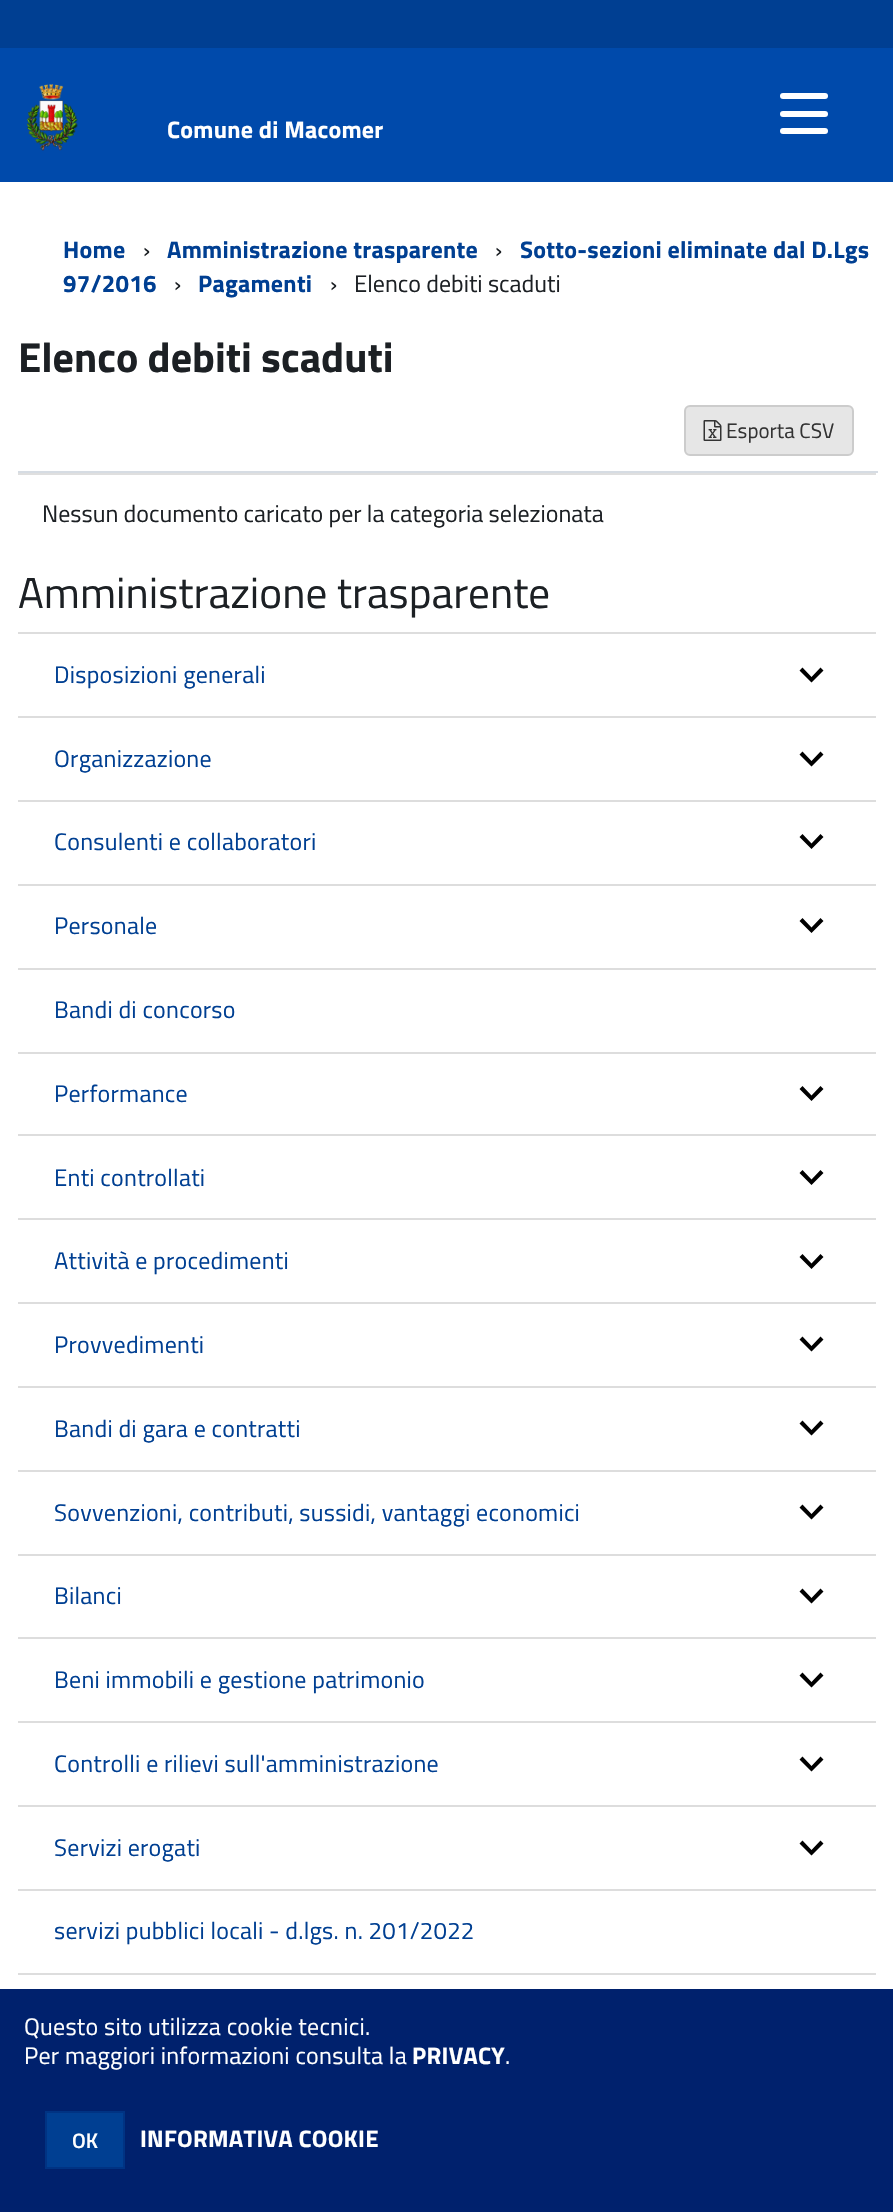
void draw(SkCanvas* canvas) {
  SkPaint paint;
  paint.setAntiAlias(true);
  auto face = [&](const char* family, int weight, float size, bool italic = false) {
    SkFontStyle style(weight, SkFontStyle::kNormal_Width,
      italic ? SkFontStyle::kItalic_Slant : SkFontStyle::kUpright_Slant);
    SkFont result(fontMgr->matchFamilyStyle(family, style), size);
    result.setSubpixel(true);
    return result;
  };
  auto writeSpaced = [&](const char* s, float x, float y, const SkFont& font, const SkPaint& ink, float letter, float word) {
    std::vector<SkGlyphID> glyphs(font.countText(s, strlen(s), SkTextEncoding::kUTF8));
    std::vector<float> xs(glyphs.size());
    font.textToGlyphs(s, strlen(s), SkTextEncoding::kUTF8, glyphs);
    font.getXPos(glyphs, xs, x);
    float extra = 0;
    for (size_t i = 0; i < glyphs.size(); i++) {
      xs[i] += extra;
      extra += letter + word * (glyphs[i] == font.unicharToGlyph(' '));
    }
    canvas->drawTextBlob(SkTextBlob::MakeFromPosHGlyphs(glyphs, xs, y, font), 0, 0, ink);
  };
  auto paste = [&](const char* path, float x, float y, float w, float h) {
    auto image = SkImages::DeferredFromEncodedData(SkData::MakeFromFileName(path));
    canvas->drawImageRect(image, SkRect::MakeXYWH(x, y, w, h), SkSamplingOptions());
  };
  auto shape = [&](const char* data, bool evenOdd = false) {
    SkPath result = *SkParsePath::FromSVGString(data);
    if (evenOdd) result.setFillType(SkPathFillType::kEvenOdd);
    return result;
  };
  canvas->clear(0xffffffff);
  paint.setColor(0xff003f92);
  canvas->drawRect(SkRect::MakeXYWH(0, 0, 893, 48), paint);
  paint.setColor(0xff004aab);
  canvas->drawRect(SkRect::MakeXYWH(0, 48, 893, 134), paint);
  paste("img/1.png", 27, 84, 51, 67);
  paint.setColor(0xffffffff);
  canvas->drawRoundRect(SkRect::MakeXYWH(780, 111, 48, 6), 3, 3, paint);
  canvas->drawRoundRect(SkRect::MakeXYWH(780, 93, 48, 6), 3, 3, paint);
  canvas->drawRoundRect(SkRect::MakeXYWH(780, 128, 48, 6), 3, 3, paint);
  paint.setColor(0xffe6e6e6);
  canvas->drawRoundRect(SkRect::MakeXYWH(685, 406, 168, 49), 5, 5, paint);
  paint.setStroke(true);
  paint.setStrokeWidth(2);
  paint.setColor(0xffcccccc);
  canvas->drawRoundRect(SkRect::MakeXYWH(685, 406, 168, 49), 5, 5, paint);
  paste("img/2.png", 703, 420, 19, 21);
  paint.setStroke(false);
  {
    const struct { float x, y, w, h; SkColor color; } items[] = {
      {18, 471, 860, 2, 0xffd6dce3},
      {18, 473, 858, 2, 0xffdfdfdf},
      {18, 632, 858, 2, 0xffdddddd},
    };
    for (auto [x, y, w, h, color] : items) {
      paint.setColor(color);
      canvas->drawRect(SkRect::MakeXYWH(x, y, w, h), paint);
    }
  }
  paint.setColor(0xff000000);
  canvas->drawPath(shape("M802.5 667.5L799.5 670.5L811.5 682.5L823.5 670.5L820.5 667.5L811.5 677Z"), paint);
  paint.setColor(0xffdddddd);
  canvas->drawRect(SkRect::MakeXYWH(18, 716, 858, 2), paint);
  paint.setColor(0xff000000);
  canvas->drawPath(shape("M802.5 751.5L799.5 754.5L811.5 766.5L823.5 754.5L820.5 751.5L811.5 761Z"), paint);
  paint.setColor(0xffdddddd);
  canvas->drawRect(SkRect::MakeXYWH(18, 800, 858, 2), paint);
  paint.setColor(0xff000000);
  canvas->drawPath(shape("M802.5 834L799.5 837L811.5 849L823.5 837L820.5 834L811.5 843.5Z"), paint);
  paint.setColor(0xffdddddd);
  canvas->drawRect(SkRect::MakeXYWH(18, 884, 858, 2), paint);
  paint.setColor(0xff000000);
  canvas->drawPath(shape("M802.5 918L799.5 921L811.5 933L823.5 921L820.5 918L811.5 927.5Z"), paint);
  paint.setColor(0xffdddddd);
  canvas->drawRect(SkRect::MakeXYWH(18, 968, 858, 2), paint);
  canvas->drawRect(SkRect::MakeXYWH(18, 1052, 858, 2), paint);
  paint.setColor(0xff000000);
  canvas->drawPath(shape("M802.5 1086L799.5 1089L811.5 1101L823.5 1089L820.5 1086L811.5 1095.5Z"), paint);
  paint.setColor(0xffdddddd);
  canvas->drawRect(SkRect::MakeXYWH(18, 1134, 858, 2), paint);
  paint.setColor(0xff000000);
  canvas->drawPath(shape("M802.5 1170L799.5 1173L811.5 1185L823.5 1173L820.5 1170L811.5 1179.5Z"), paint);
  paint.setColor(0xffdddddd);
  canvas->drawRect(SkRect::MakeXYWH(18, 1218, 858, 2), paint);
  paint.setColor(0xff000000);
  canvas->drawPath(shape("M802.5 1254L799.5 1257L811.5 1269L823.5 1257L820.5 1254L811.5 1263.5Z"), paint);
  paint.setColor(0xffdddddd);
  canvas->drawRect(SkRect::MakeXYWH(18, 1302, 858, 2), paint);
  paint.setColor(0xff000000);
  canvas->drawPath(shape("M802.5 1336.5L799.5 1339.5L811.5 1351.5L823.5 1339.5L820.5 1336.5L811.5 1346Z"), paint);
  paint.setColor(0xffdddddd);
  canvas->drawRect(SkRect::MakeXYWH(18, 1386, 858, 2), paint);
  paint.setColor(0xff000000);
  canvas->drawPath(shape("M802.5 1420.5L799.5 1423.5L811.5 1435.5L823.5 1423.5L820.5 1420.5L811.5 1430Z"), paint);
  paint.setColor(0xffdddddd);
  canvas->drawRect(SkRect::MakeXYWH(18, 1470, 858, 2), paint);
  paint.setColor(0xff000000);
  canvas->drawPath(shape("M802.5 1504.5L799.5 1507.5L811.5 1519.5L823.5 1507.5L820.5 1504.5L811.5 1514Z"), paint);
  paint.setColor(0xffdddddd);
  canvas->drawRect(SkRect::MakeXYWH(18, 1554, 858, 2), paint);
  paint.setColor(0xff000000);
  canvas->drawPath(shape("M802.5 1588.5L799.5 1591.5L811.5 1603.5L823.5 1591.5L820.5 1588.5L811.5 1598Z"), paint);
  paint.setColor(0xffdddddd);
  canvas->drawRect(SkRect::MakeXYWH(18, 1637, 858, 2), paint);
  paint.setColor(0xff000000);
  canvas->drawPath(shape("M802.5 1672.5L799.5 1675.5L811.5 1687.5L823.5 1675.5L820.5 1672.5L811.5 1682Z"), paint);
  paint.setColor(0xffdddddd);
  canvas->drawRect(SkRect::MakeXYWH(18, 1721, 858, 2), paint);
  paint.setColor(0xff000000);
  canvas->drawPath(shape("M802.5 1756.5L799.5 1759.5L811.5 1771.5L823.5 1759.5L820.5 1756.5L811.5 1766Z"), paint);
  paint.setColor(0xffdddddd);
  canvas->drawRect(SkRect::MakeXYWH(18, 1805, 858, 2), paint);
  paint.setColor(0xff000000);
  canvas->drawPath(shape("M802.5 1840.5L799.5 1843.5L811.5 1855.5L823.5 1843.5L820.5 1840.5L811.5 1850Z"), paint);
  {
    const struct { float x, y, w, h; SkColor color; } items[] = {
      {18, 1889, 858, 2, 0xffdddddd},
      {18, 1973, 858, 2, 0xffdddddd},
      {0, 1989, 893, 223, 0xff00216d},
    };
    for (auto [x, y, w, h, color] : items) {
      paint.setColor(color);
      canvas->drawRect(SkRect::MakeXYWH(x, y, w, h), paint);
    }
  }
  paint.setColor(0xff003f92);
  canvas->drawRect(SkRect::MakeXYWH(46, 2112, 78, 56), paint);
  paint.setStroke(true);
  paint.setColor(0xff003383);
  canvas->drawRect(SkRect::MakeXYWH(46, 2112, 78, 56), paint);
  auto f0 = face("Titillium Web", 700, 24);
  paint.setStroke(false);
  paint.setColor(0xffffffff);
  writeSpaced("Comune di Macomer", 167, 138, f0, paint, 0.25f, 0);
  paint.setColor(0xff003f92);
  writeSpaced("Home", 63, 258, f0, paint, 0.25f, 0);
  auto f1 = face("Titillium Web", 400, 24);
  paint.setColor(0xff1c2024);
  canvas->drawString("›", 143, 258, f1, paint);
  paint.setColor(0xff003f92);
  writeSpaced("Amministrazione trasparente", 167, 258, f0, paint, 0.25f, 0);
  paint.setColor(0xff1c2024);
  canvas->drawString("›", 495, 258, f1, paint);
  paint.setColor(0xff003f92);
  writeSpaced("Sotto-sezioni eliminate dal D.Lgs", 520, 258, f0, paint, 0.25f, 0);
  writeSpaced("97/2016", 63, 292, f0, paint, 0.25f, 0);
  paint.setColor(0xff1c2024);
  canvas->drawString("›", 174, 292, f1, paint);
  paint.setColor(0xff003f92);
  writeSpaced("Pagamenti", 198, 292, f0, paint, 0.25f, 0);
  paint.setColor(0xff1c2024);
  canvas->drawString("›", 330, 292, f1, paint);
  canvas->drawString("Elenco debiti scaduti", 354, 292, f1, paint);
  auto f2 = face("Titillium Web", 700, 42);
  canvas->drawString("Elenco debiti scaduti", 18, 372, f2, paint);
  auto f3 = face("Titillium Web", 400, 21);
  paint.setColor(0xff333333);
  canvas->drawString("Esporta CSV", 726, 438, f3, paint);
  paint.setColor(0xff1c2024);
  canvas->drawString("Nessun documento caricato per la categoria selezionata", 42, 522, f1, paint);
  auto f4 = face("Titillium Web", 400, 43.25f);
  canvas->drawString("Amministrazione trasparente", 18, 608, f4, paint);
  paint.setColor(0xff003f92);
  {
    const struct { const char* s; float x, y; } items[] = {
      {"Disposizioni generali", 54, 683},
      {"Organizzazione", 54, 767},
      {"Consulenti e collaboratori", 54, 850},
      {"Personale", 54, 934},
      {"Bandi di concorso", 54, 1018},
      {"Performance", 54, 1102},
      {"Enti controllati", 54, 1186},
      {"Attività e procedimenti", 54, 1269},
      {"Provvedimenti", 54, 1353},
      {"Bandi di gara e contratti", 54, 1437},
      {"Sovvenzioni, contributi, sussidi, vantaggi economici", 54, 1521},
      {"Bilanci", 54, 1604},
      {"Beni immobili e gestione patrimonio", 54, 1688},
      {"Controlli e rilievi sull'amministrazione", 54, 1772},
      {"Servizi erogati", 54, 1856},
      {"servizi pubblici locali - d.lgs. n. 201/2022", 54, 1939},
    };
    for (auto [s, x, y] : items) {
      writeSpaced(s, x, y, f1, paint, 0.25f, 0);
    }
  }
  paint.setColor(0xffffffff);
  writeSpaced("Questo sito utilizza cookie tecnici.", 24, 2035, f1, paint, 0.25f, 0);
  writeSpaced("Per maggiori informazioni consulta la", 24, 2064, f1, paint, 0.25f, 0);
  writeSpaced("PRIVACY", 412, 2064, f0, paint, 0.25f, 0);
  writeSpaced(".", 505, 2064, f1, paint, 0.25f, 0);
  auto f5 = face("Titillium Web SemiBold", 600, 21);
  canvas->drawString("OK", 72, 2148, f5, paint);
  writeSpaced("INFORMATIVA COOKIE", 140, 2147, f0, paint, 0.25f, 0);
}
